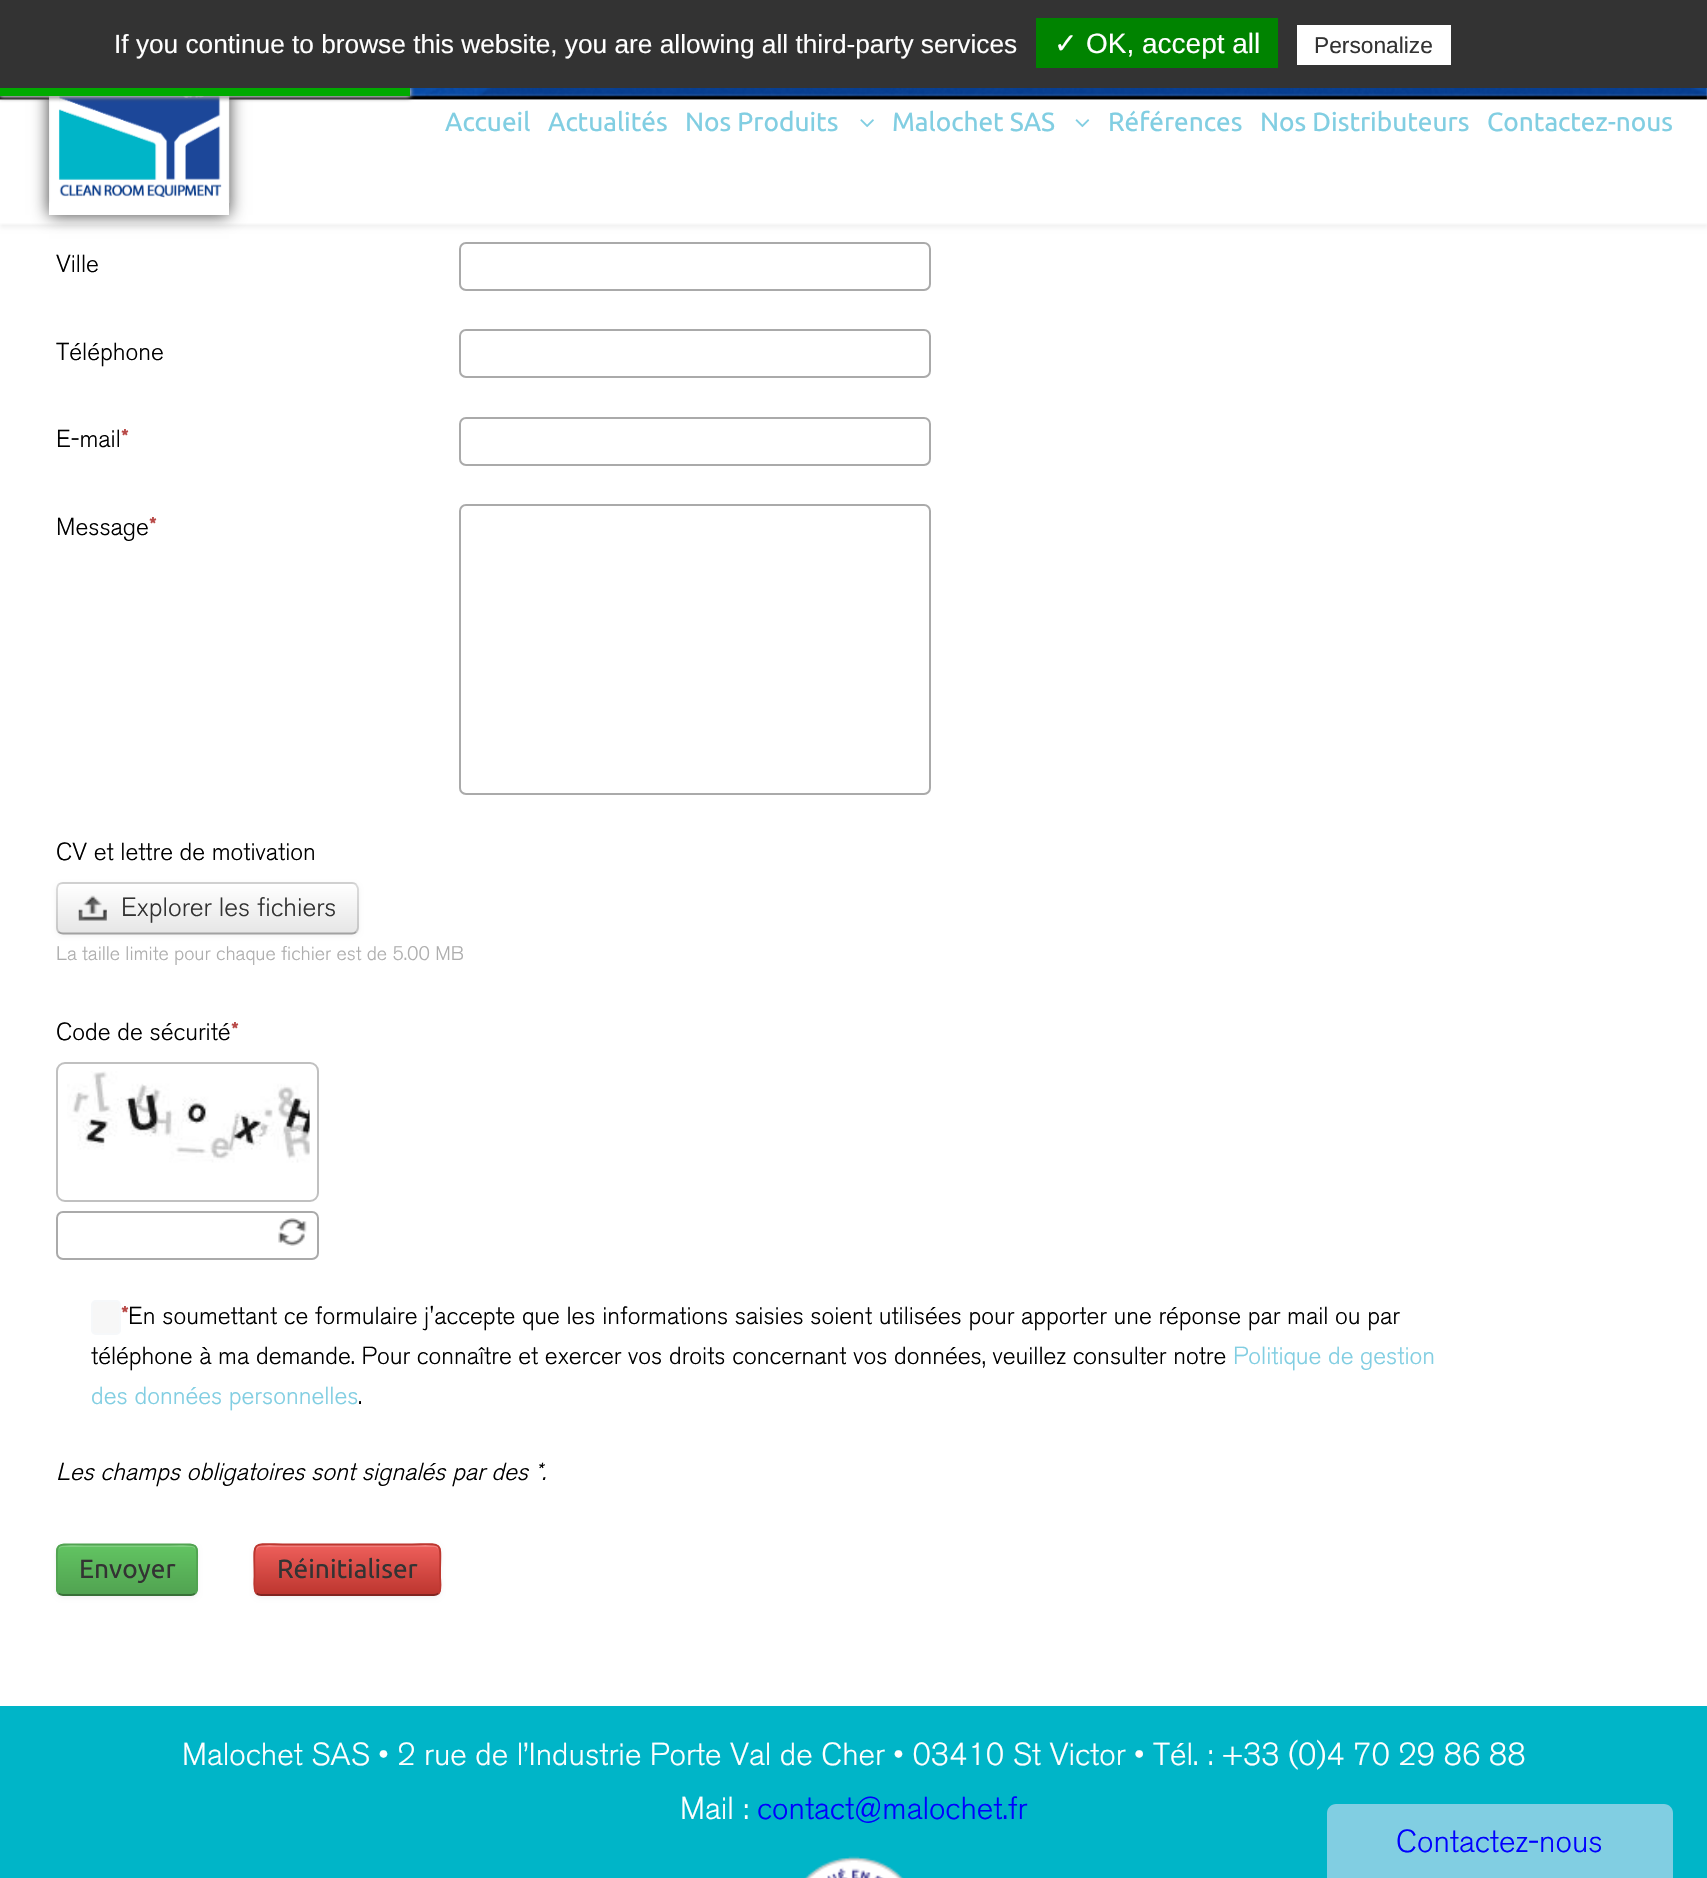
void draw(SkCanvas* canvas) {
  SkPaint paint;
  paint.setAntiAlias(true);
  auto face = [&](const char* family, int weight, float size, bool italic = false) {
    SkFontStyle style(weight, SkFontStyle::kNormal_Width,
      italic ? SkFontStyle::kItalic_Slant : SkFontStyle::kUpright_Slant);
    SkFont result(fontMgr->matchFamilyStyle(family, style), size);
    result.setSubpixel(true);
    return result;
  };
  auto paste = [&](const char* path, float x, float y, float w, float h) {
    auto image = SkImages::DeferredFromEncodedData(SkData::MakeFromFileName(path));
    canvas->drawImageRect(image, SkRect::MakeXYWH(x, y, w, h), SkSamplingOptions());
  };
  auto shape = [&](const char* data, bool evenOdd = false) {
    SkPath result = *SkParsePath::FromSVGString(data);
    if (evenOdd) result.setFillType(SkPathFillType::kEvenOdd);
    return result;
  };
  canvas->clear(0xffffffff);
  paint.setColor(0x0d000000);
  paint.setMaskFilter(SkMaskFilter::MakeBlur(kNormal_SkBlurStyle, 2));
  canvas->drawRect(SkRect::MakeXYWH(0, 4, 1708, 224), paint);
  paint.setMaskFilter(nullptr);
  paste("img/1.png", 0, 88, 1707, 137);
  paint.setColor(0xbf000000);
  paint.setMaskFilter(SkMaskFilter::MakeBlur(kNormal_SkBlurStyle, 8));
  canvas->drawRect(SkRect::MakeXYWH(49, 9, 180, 206), paint);
  paint.setMaskFilter(nullptr);
  paint.setColor(0xffffffff);
  canvas->drawRect(SkRect::MakeXYWH(49, 96, 180, 119), paint);
  paste("img/2.png", 49, 96, 181, 107);
  paint.setColor(0xff555555);
  paint.setMaskFilter(SkMaskFilter::MakeBlur(kNormal_SkBlurStyle, 2));
  canvas->drawRect(SkRect::MakeXYWH(0, 89, 410, 9), paint);
  paint.setMaskFilter(nullptr);
  paint.setColor(0xffffffff);
  paint.setMaskFilter(SkMaskFilter::MakeBlur(kNormal_SkBlurStyle, 2));
  canvas->drawRect(SkRect::MakeXYWH(0, 88, 410, 8), paint);
  paint.setMaskFilter(nullptr);
  {
    const struct { float x, y, w, h; SkColor color; } items[] = {
      {0, 0, 1707, 88, 0xff333333},
      {1036, 18, 242, 50, 0xff008300},
      {1297, 25, 154, 40, 0xffffffff},
      {0, 88, 410, 8, 0xff00aa00},
    };
    for (auto [x, y, w, h, color] : items) {
      paint.setColor(color);
      canvas->drawRect(SkRect::MakeXYWH(x, y, w, h), paint);
    }
  }
  paste("img/3.png", 860, 119, 14, 9);
  paste("img/4.png", 1075, 119, 15, 9);
  paint.setStroke(true);
  paint.setStrokeWidth(2);
  paint.setColor(0xffaaaaaa);
  canvas->drawRoundRect(SkRect::MakeXYWH(460, 243, 470, 47), 6, 6, paint);
  canvas->drawRoundRect(SkRect::MakeXYWH(460, 330, 470, 47), 6, 6, paint);
  canvas->drawRoundRect(SkRect::MakeXYWH(460, 418, 470, 47), 6, 6, paint);
  canvas->drawRoundRect(SkRect::MakeXYWH(460, 505, 470, 289), 6, 6, paint);
  paint.setStroke(false);
  paint.setColor(0x0d000000);
  paint.setMaskFilter(SkMaskFilter::MakeBlur(kNormal_SkBlurStyle, 2));
  canvas->drawRoundRect(SkRect::MakeXYWH(56, 884, 303, 52), 7, 7, paint);
  paint.setMaskFilter(nullptr);
  paint.setColor(0xfff5f5f5);
  canvas->drawRoundRect(SkRect::MakeXYWH(56, 882, 303, 53), 7, 7, paint);
  canvas->save();
  canvas->clipPath(shape("M63 882H352C356 882 359 885 359 889V928C359 932 356 935 352 935H63C59 935 56 932 56 928V889C56 885 59 882 63 882Z"), true);
  {
    const SkColor colors[] = {0xffffffff, 0xffe6e6e6};
    const float stops[] = {0, 1};
    const SkPoint ends[] = {{207, 884}, {207, 933}};
    paint.setShader(SkGradientShader::MakeLinear(ends, colors, stops, 2, SkTileMode::kClamp));
    paint.setAlpha(255);
  }
  canvas->drawRect(SkRect::MakeXYWH(56, 884, 303, 49), paint);
  canvas->restore();
  paint.setStroke(true);
  paint.setStrokeWidth(1.8f);
  paint.setShader(nullptr);
  paint.setColor(0xffa2a2a2);
  canvas->drawPath(shape("M356 932C355 933 353.5 933.5 352 933.5H63C61.5 933.5 60 933 58.5 932"), paint);
  paint.setColor(0x26000000);
  canvas->drawPath(shape("M58.5 932C57.5 930.5 57 929 57 927.5V889C57 887.5 57.5 886 58.5 884.5C60 883.5 61.5 883 63 883H352C353.5 883 355 883.5 356 884.5C357 886 358 887.5 358 889V927.5C358 929 357 930.5 356 932"), paint);
  paste("img/5.png", 78, 895, 29, 26);
  paint.setStrokeWidth(2);
  paint.setColor(0xffc0c0c0);
  canvas->drawRoundRect(SkRect::MakeXYWH(57, 1063, 261, 138), 8, 8, paint);
  paste("img/6.png", 67, 1071, 243, 92);
  paint.setColor(0xffaaaaaa);
  canvas->drawRoundRect(SkRect::MakeXYWH(57, 1212, 261, 47), 6, 6, paint);
  paste("img/7.png", 278, 1218, 29, 28);
  paint.setStroke(false);
  paint.setColor(0xfff7f7f7);
  canvas->drawRoundRect(SkRect::MakeXYWH(92, 1301, 28, 33), 4, 4, paint);
  paint.setStroke(true);
  paint.setColor(0xfff6f8fa);
  canvas->drawRoundRect(SkRect::MakeXYWH(92, 1301, 28, 33), 4, 4, paint);
  paint.setStroke(false);
  paint.setColor(0x0d000000);
  paint.setMaskFilter(SkMaskFilter::MakeBlur(kNormal_SkBlurStyle, 2));
  canvas->drawRoundRect(SkRect::MakeXYWH(56, 1545, 142, 53), 7, 7, paint);
  paint.setMaskFilter(nullptr);
  canvas->save();
  canvas->clipPath(shape("M63 1544H191C195 1544 198 1547 198 1551V1589C198 1593 195 1596 191 1596H63C59 1596 56 1593 56 1589V1551C56 1547 59 1544 63 1544Z"), true);
  {
    const SkColor colors[] = {0xff62c462, 0xff51a351};
    const float stops[] = {0, 1};
    const SkPoint ends[] = {{127, 1545}, {127, 1594}};
    paint.setShader(SkGradientShader::MakeLinear(ends, colors, stops, 2, SkTileMode::kClamp));
    paint.setAlpha(255);
  }
  canvas->drawRect(SkRect::MakeXYWH(56, 1545, 142, 49), paint);
  canvas->restore();
  paint.setShader(nullptr);
  paint.setColor(0x33ffffff);
  canvas->drawPath(shape("M63 1547H191C194 1547 196 1549 196 1552V1550C196 1547 194 1545 191 1545H63C60 1545 58 1547 58 1550V1552C58 1549 60 1547 63 1547Z"), paint);
  paint.setStroke(true);
  paint.setStrokeWidth(1.8f);
  paint.setColor(0xff387038);
  canvas->drawPath(shape("M195 1593.5C194 1594.5 192.5 1595 191 1595H63C61.5 1595 60 1594.5 58.5 1593.5"), paint);
  paint.setColor(0xff51a351);
  canvas->drawPath(shape("M58.5 1593.5C56 1590.5 57 1586 57 1582.5V1570C57 1540 53 1544.5 84.5 1544.5H169.5C201 1544.5 197 1540 197 1570V1582.5C197 1586 198 1590.5 195 1593.5"), paint);
  paint.setStroke(false);
  paint.setColor(0x0d000000);
  paint.setMaskFilter(SkMaskFilter::MakeBlur(kNormal_SkBlurStyle, 2));
  canvas->drawRoundRect(SkRect::MakeXYWH(254, 1545, 187, 53), 7, 7, paint);
  paint.setMaskFilter(nullptr);
  canvas->save();
  canvas->clipPath(shape("M261 1544H434C438 1544 441 1547 441 1551V1589C441 1593 438 1596 434 1596H261C257 1596 254 1593 254 1589V1551C254 1547 257 1544 261 1544Z"), true);
  {
    const SkColor colors[] = {0xffee5f5b, 0xffbd362f};
    const float stops[] = {0, 1};
    const SkPoint ends[] = {{347, 1545}, {347, 1594}};
    paint.setShader(SkGradientShader::MakeLinear(ends, colors, stops, 2, SkTileMode::kClamp));
    paint.setAlpha(255);
  }
  canvas->drawRect(SkRect::MakeXYWH(254, 1545, 187, 49), paint);
  canvas->restore();
  paint.setShader(nullptr);
  paint.setColor(0x33ffffff);
  canvas->drawPath(shape("M261 1547H434C437 1547 439 1549 439 1552V1550C439 1547 437 1545 434 1545H261C258 1545 256 1547 256 1550V1552C256 1549 258 1547 261 1547Z"), paint);
  paint.setStroke(true);
  paint.setColor(0xff802420);
  canvas->drawPath(shape("M438.5 1593.5C437 1594.5 435.5 1595 434 1595H261C259 1595 257.5 1594.5 256.5 1593.5"), paint);
  paint.setColor(0xffbd362f);
  canvas->drawPath(shape("M256.5 1593.5C253 1590 254.5 1580 254.5 1576C254.5 1538 248.5 1544.5 289.5 1544.5H405C446.5 1544.5 440 1538 440 1576C440 1580 442 1590 438.5 1593.5"), paint);
  paint.setStroke(false);
  paint.setColor(0xff00b5c8);
  canvas->drawRect(SkRect::MakeXYWH(0, 1706, 1707, 172), paint);
  paste("img/8.png", 804, 1856, 100, 22);
  paint.setColor(0xff81cee2);
  canvas->drawPath(shape("M1336 1804H1664C1669 1804 1673 1808 1673 1813V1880H1327V1813C1327 1808 1331 1804 1336 1804Z"), paint);
  auto f0 = face("Liberation Sans", 400, 26.25f);
  paint.setColor(0xffffffff);
  canvas->drawString("If you continue to browse this website, you are allowing all third-party services", 114, 53, f0, paint);
  auto f1 = face("DejaVu Sans", 400, 28);
  canvas->drawString("✓", 1054, 53, f1, paint);
  auto f2 = face("Liberation Sans", 400, 28);
  canvas->drawString("OK, accept all", 1086, 53, f2, paint);
  auto f3 = face("Liberation Sans", 400, 22.75f);
  paint.setColor(0xff333333);
  canvas->drawString("Personalize", 1314, 53, f3, paint);
  auto f4 = face("Ubuntu", 400, 26.25f);
  paint.setColor(0xff81cee2);
  {
    const struct { const char* s; float x, y; } items[] = {
      {"Accueil", 445, 131},
      {"Actualités", 548, 131},
      {"Nos Produits", 685, 131},
      {"Malochet SAS", 892, 131},
      {"Références", 1108, 131},
      {"Nos Distributeurs", 1260, 131},
      {"Contactez-nous", 1487, 131},
    };
    for (auto [s, x, y] : items) {
      canvas->drawString(s, x, y, f4, paint);
    }
  }
  auto f5 = face("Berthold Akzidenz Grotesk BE", 300, 24.5f);
  paint.setColor(0xff000000);
  {
    const struct { const char* s; float x, y; } items[] = {
      {"Ville", 56, 272},
      {"Téléphone", 56, 360},
      {"E-mail", 56, 447},
    };
    for (auto [s, x, y] : items) {
      canvas->drawString(s, x, y, f5, paint);
    }
  }
  auto f6 = face("Berthold Akzidenz Grotesk BE", 700, 24.5f);
  paint.setColor(0xffb94a48);
  canvas->drawString("*", 121, 447, f6, paint);
  paint.setColor(0xff000000);
  canvas->drawString("Message", 56, 535, f5, paint);
  paint.setColor(0xffb94a48);
  canvas->drawString("*", 149, 535, f6, paint);
  paint.setColor(0xff000000);
  canvas->drawString("CV et lettre de motivation", 56, 860, f5, paint);
  auto f7 = face("Berthold Akzidenz Grotesk BE", 300, 26.25f);
  paint.setColor(0xff333333);
  canvas->drawString("Explorer les fichiers", 121, 916, f7, paint);
  auto f8 = face("Berthold Akzidenz Grotesk BE", 300, 19.6f);
  paint.setColor(0xffaeaeae);
  canvas->drawString("La taille limite pour chaque fichier est de 5.00 MB", 56, 960, f8, paint);
  paint.setColor(0xff000000);
  canvas->drawString("Code de sécurité", 56, 1040, f5, paint);
  paint.setColor(0xffb94a48);
  canvas->drawString("*", 231, 1040, f6, paint);
  canvas->drawString("*", 121, 1324, f6, paint);
  paint.setColor(0xff000000);
  canvas->drawString("En soumettant ce formulaire j'accepte que les informations saisies soient utilisées pour apporter une réponse par mail ou par", 128, 1324, f5, paint);
  canvas->drawString("téléphone à ma demande. Pour connaître et exercer vos droits concernant vos données, veuillez consulter notre", 91, 1364, f5, paint);
  paint.setColor(0xff81cee2);
  canvas->drawString("Politique de gestion", 1233, 1364, f5, paint);
  canvas->drawString("des données personnelles", 91, 1404, f5, paint);
  paint.setColor(0xff000000);
  canvas->drawString(".", 358, 1404, f5, paint);
  auto f9 = face("Berthold Akzidenz Grotesk BE", 300, 24.5f, true);
  canvas->drawString("Les champs obligatoires sont signalés par des *.", 56, 1480, f9, paint);
  paint.setColor(0xff333333);
  canvas->drawString("Envoyer", 79, 1578, f4, paint);
  canvas->drawString("Réinitialiser", 277, 1578, f4, paint);
  auto f10 = face("Berthold Akzidenz Grotesk BE", 300, 31.5f);
  paint.setColor(0xffffffff);
  canvas->drawString("Malochet SAS • 2 rue de l’Industrie Porte Val de Cher • 03410 St Victor • Tél. : +33 (0)4 70 29 86 88", 182, 1765, f10, paint);
  canvas->drawString("Mail :", 680, 1819, f10, paint);
  paint.setColor(0xff0000ff);
  canvas->drawString("contact@malochet.fr", 757, 1819, f10, paint);
  canvas->drawString("Contactez-nous", 1396, 1852, f10, paint);
}
